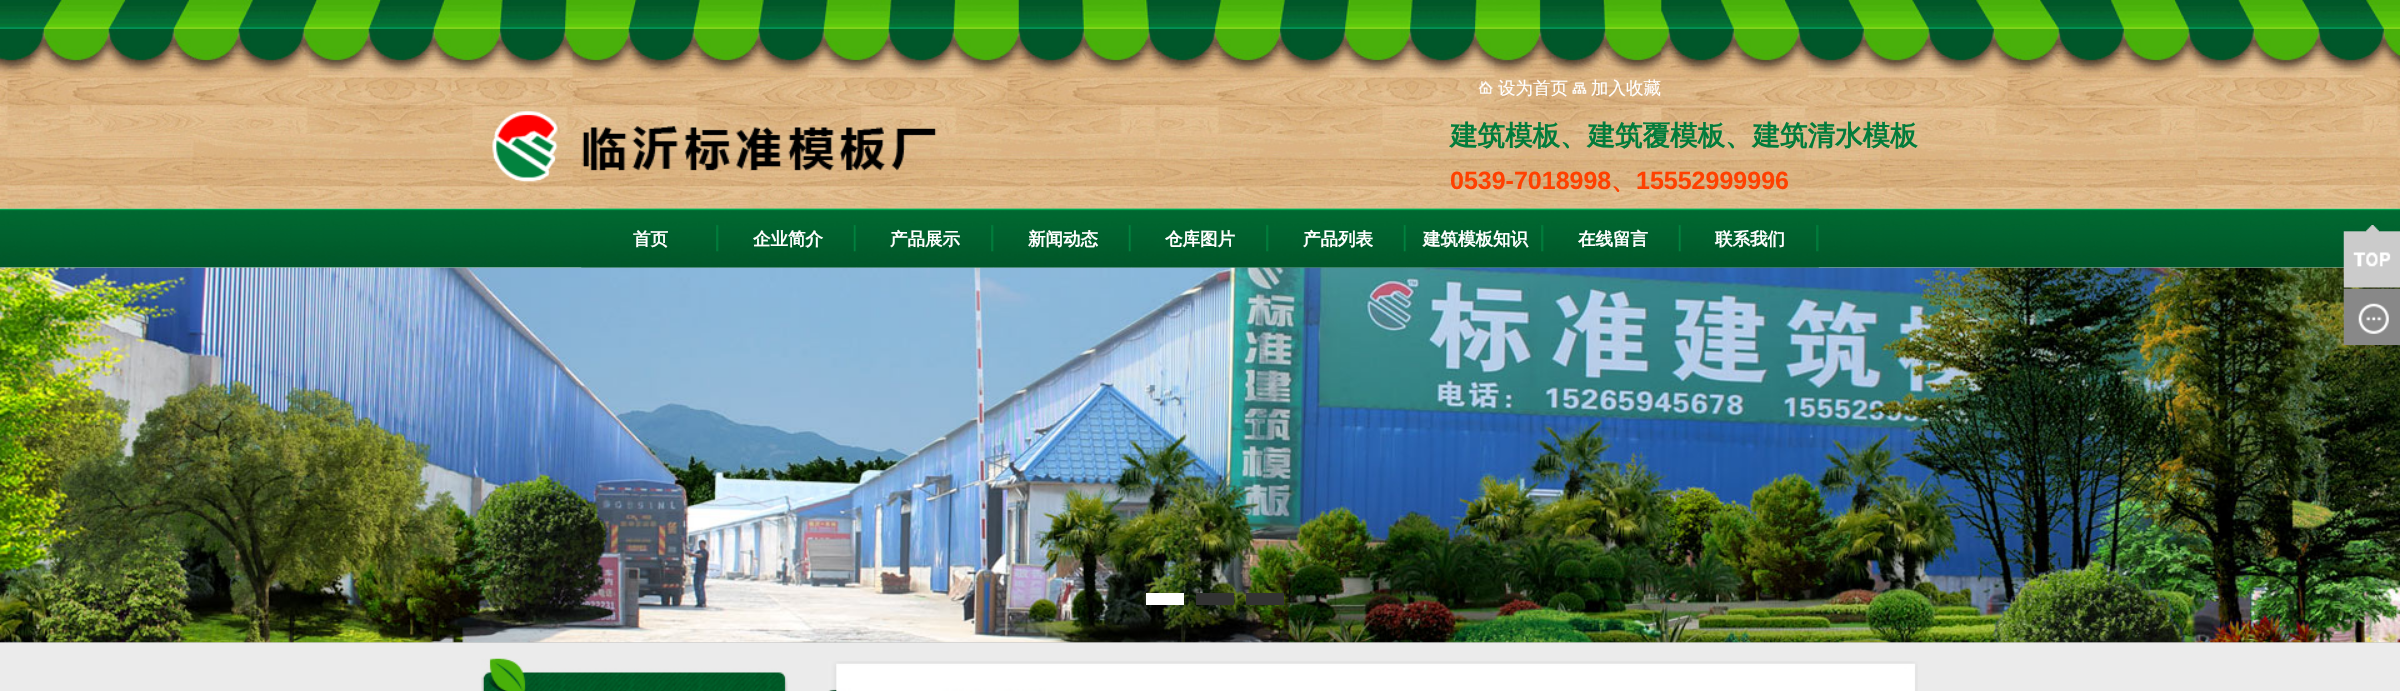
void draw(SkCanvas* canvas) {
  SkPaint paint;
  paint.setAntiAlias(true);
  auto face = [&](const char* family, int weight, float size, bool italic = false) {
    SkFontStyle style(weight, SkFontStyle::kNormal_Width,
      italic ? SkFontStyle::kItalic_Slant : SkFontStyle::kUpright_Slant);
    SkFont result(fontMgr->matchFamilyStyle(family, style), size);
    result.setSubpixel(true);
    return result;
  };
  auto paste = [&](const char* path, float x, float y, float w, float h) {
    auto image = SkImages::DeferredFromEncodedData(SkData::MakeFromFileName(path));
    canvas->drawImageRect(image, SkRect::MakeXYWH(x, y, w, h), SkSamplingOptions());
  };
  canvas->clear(0xffebebeb);
  paste("img/1.png", 0, 0, 2400, 209);
  paste("img/2.png", 492, 111, 445, 71);
  paste("img/3.png", 1478, 81, 15, 13);
  paste("img/4.png", 1572, 82, 15, 12);
  paste("img/5.png", 0, 208, 2400, 60);
  paste("img/6.png", 581, 208, 138, 60);
  paste("img/7.png", 718, 208, 139, 60);
  paste("img/8.png", 856, 208, 138, 60);
  paste("img/9.png", 993, 208, 139, 60);
  paste("img/10.png", 1131, 208, 138, 60);
  paste("img/11.png", 1268, 208, 139, 60);
  paste("img/12.png", 1406, 208, 138, 60);
  paste("img/13.png", 1543, 208, 139, 60);
  paste("img/14.png", 1681, 208, 138, 60);
  paint.setColor(0xffcccccc);
  canvas->drawRect(SkRect::MakeXYWH(0, 642, 2400, 1), paint);
  paste("img/17.png", 0, 267, 2400, 376);
  paste("img/15.png", 2343, 225, 57, 63);
  paste("img/16.png", 2343, 288, 57, 57);
  {
    const struct { float x, y, w, h; SkColor color; } items[] = {
      {1146, 593, 38, 12, 0xffffffff},
      {1196, 593, 38, 12, 0xff333333},
      {1246, 593, 38, 12, 0xff333333},
    };
    for (auto [x, y, w, h, color] : items) {
      paint.setColor(color);
      canvas->drawRect(SkRect::MakeXYWH(x, y, w, h), paint);
    }
  }
  paste("img/18.png", 481, 658, 307, 33);
  paste("img/19.png", 828, 661, 1090, 30);
  auto f0 = face("WenQuanYi Zen Hei", 500, 17.5f);
  paint.setColor(0xffffffff);
  canvas->drawString("设为首页", 1498, 94, f0, paint);
  canvas->drawString("加入收藏", 1591, 94, f0, paint);
  auto f1 = face("WenQuanYi Zen Hei", 700, 27.5f);
  paint.setColor(0xff027c3b);
  canvas->drawString("建筑模板、建筑覆模板、建筑清水模板", 1450, 145, f1, paint);
  auto f2 = face("Liberation Sans", 700, 25);
  paint.setColor(0xffff4000);
  canvas->drawString("0539-7018998", 1450, 189, f2, paint);
  auto f3 = face("WenQuanYi Zen Hei", 700, 25);
  canvas->drawString("、", 1611, 189, f3, paint);
  canvas->drawString("15552999996", 1636, 189, f2, paint);
  auto f4 = face("WenQuanYi Zen Hei", 700, 17.5f);
  paint.setColor(0xffffffff);
  {
    const struct { const char* s; float x, y; } items[] = {
      {"首页", 633, 245},
      {"企业简介", 753, 245},
      {"产品展示", 890, 245},
      {"新闻动态", 1028, 245},
      {"仓库图片", 1165, 245},
      {"产品列表", 1303, 245},
      {"建筑模板知识", 1423, 245},
      {"在线留言", 1578, 245},
      {"联系我们", 1715, 245},
    };
    for (auto [s, x, y] : items) {
      canvas->drawString(s, x, y, f4, paint);
    }
  }
}
